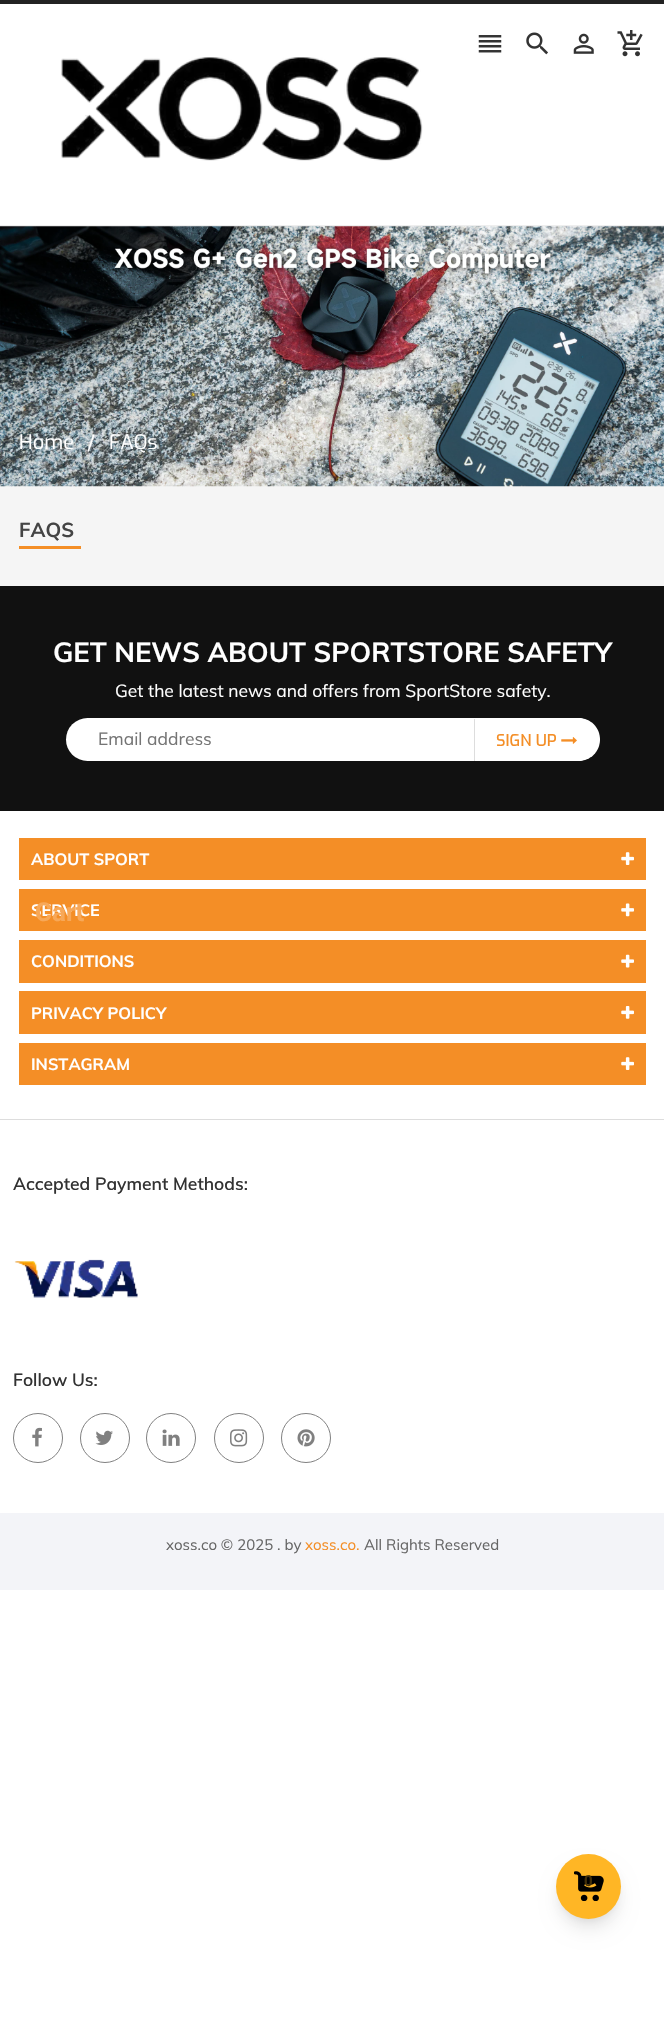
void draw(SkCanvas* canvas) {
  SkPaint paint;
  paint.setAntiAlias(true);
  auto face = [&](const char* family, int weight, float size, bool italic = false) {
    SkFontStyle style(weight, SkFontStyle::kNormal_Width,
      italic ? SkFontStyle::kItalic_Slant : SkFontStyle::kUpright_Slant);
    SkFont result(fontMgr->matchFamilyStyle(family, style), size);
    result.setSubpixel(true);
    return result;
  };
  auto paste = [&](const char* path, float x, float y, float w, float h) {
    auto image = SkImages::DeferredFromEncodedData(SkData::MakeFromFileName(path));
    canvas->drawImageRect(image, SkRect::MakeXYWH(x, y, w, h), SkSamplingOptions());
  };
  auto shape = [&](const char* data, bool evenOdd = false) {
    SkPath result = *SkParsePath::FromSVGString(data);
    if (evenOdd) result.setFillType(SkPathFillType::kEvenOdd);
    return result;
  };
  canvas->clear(0xffffffff);
  paint.setColor(0xff222222);
  canvas->drawRect(SkRect::MakeXYWH(0, 0, 664, 4), paint);
  paint.setColor(0xffeeeeee);
  canvas->drawRect(SkRect::MakeXYWH(0, 225, 664, 1), paint);
  paste("img/1.png", 478, 35, 24, 18);
  paste("img/2.png", 526, 32, 22, 23);
  paste("img/3.png", 573, 33, 21, 21);
  paste("img/4.png", 617, 30, 26, 27);
  paste("img/5.png", 61, 57, 362, 104);
  paint.setColor(0xfff5f5f5);
  canvas->drawRect(SkRect::MakeXYWH(0, 226, 664, 360), paint);
  paste("img/6.png", 0, 226, 664, 261);
  paint.setColor(0xfff48e26);
  canvas->drawRect(SkRect::MakeXYWH(19, 546, 62, 3), paint);
  paint.setColor(0xff111111);
  canvas->drawRect(SkRect::MakeXYWH(0, 586, 664, 225), paint);
  paint.setColor(0xffffffff);
  canvas->drawRoundRect(SkRect::MakeXYWH(66, 718, 533, 43), 21.5f, 21.5f, paint);
  canvas->drawPath(shape("M475 718H578.5C590.5 718 600 727.5 600 739.5C600 751.5 590.5 761 578.5 761H475C474.5 761 474 760.5 474 760V719C474 718.5 474.5 718 475 718Z"), paint);
  paint.setColor(0xffdddddd);
  canvas->drawRect(SkRect::MakeXYWH(474, 719, 1, 42), paint);
  paste("img/7.png", 561, 737, 16, 7);
  paint.setColor(0xfff48e26);
  canvas->drawRect(SkRect::MakeXYWH(19, 838, 627, 42), paint);
  paste("img/8.png", 621, 852, 13, 13);
  canvas->drawRect(SkRect::MakeXYWH(19, 889, 627, 42), paint);
  paste("img/9.png", 621, 903, 13, 14);
  canvas->drawRect(SkRect::MakeXYWH(19, 940, 627, 43), paint);
  paste("img/10.png", 621, 954, 13, 14);
  canvas->drawRect(SkRect::MakeXYWH(19, 991, 627, 43), paint);
  paste("img/11.png", 621, 1006, 13, 13);
  canvas->drawRect(SkRect::MakeXYWH(19, 1043, 627, 42), paint);
  paste("img/8.png", 621, 1057, 13, 13);
  paint.setColor(0xffdddddd);
  canvas->drawRect(SkRect::MakeXYWH(0, 1119, 664, 1), paint);
  paste("img/12.png", 14, 1259, 124, 39);
  paint.setStroke(true);
  paint.setStrokeWidth(1);
  paint.setColor(0xff808080);
  canvas->drawCircle(38, 1438, 24.5f, paint);
  paste("img/13.png", 32, 1427, 10, 20);
  canvas->drawCircle(105, 1438, 24.5f, paint);
  paste("img/14.png", 95, 1430, 18, 15);
  canvas->drawCircle(171, 1438, 24.5f, paint);
  paste("img/15.png", 162, 1429, 18, 17);
  canvas->drawCircle(239, 1438, 24.5f, paint);
  paste("img/16.png", 230, 1429, 18, 18);
  canvas->drawCircle(306, 1438, 24.5f, paint);
  paste("img/17.png", 297, 1429, 18, 18);
  paint.setStroke(false);
  paint.setColor(0xfff3f4f8);
  canvas->drawRect(SkRect::MakeXYWH(0, 1513, 664, 77), paint);
  paint.setColor(0x1a000000);
  paint.setMaskFilter(SkMaskFilter::MakeBlur(kNormal_SkBlurStyle, 4));
  canvas->drawRoundRect(SkRect::MakeXYWH(561, 1864, 55, 55), 27.5f, 27.5f, paint);
  paint.setMaskFilter(nullptr);
  paint.setMaskFilter(SkMaskFilter::MakeBlur(kNormal_SkBlurStyle, 9.5f));
  canvas->drawRoundRect(SkRect::MakeXYWH(560, 1870, 58, 58), 29, 29, paint);
  paint.setMaskFilter(nullptr);
  paint.setColor(0xffffb625);
  canvas->drawCircle(588.5f, 1886.5f, 32.5f, paint);
  paste("img/18.png", 574, 1871, 30, 30);
  auto f0 = face("Exo", 400, 20);
  paint.setColor(0xffffffff);
  {
    const struct { const char* s; float x, y; } items[] = {
      {"Home", 19, 449},
      {"/", 87, 450},
      {"FAQs", 109, 449},
    };
    for (auto [s, x, y] : items) {
      canvas->drawString(s, x, y, f0, paint);
    }
  }
  auto f1 = face("Muli", 700, 20);
  paint.setColor(0xff444444);
  canvas->drawString("FAQS", 19, 537, f1, paint);
  auto f2 = face("Muli", 700, 27.5f);
  paint.setColor(0xffffffff);
  canvas->drawString("GET NEWS ABOUT SPORTSTORE SAFETY", 53, 662, f2, paint);
  auto f3 = face("Muli", 400, 17.5f);
  canvas->drawString("Get the latest news and offers from SportStore safety.", 115, 697, f3, paint);
  paint.setColor(0xff757575);
  canvas->drawString("Email address", 98, 745, f3, paint);
  auto f4 = face("Exo", 500, 16.25f);
  paint.setColor(0xfff48e26);
  canvas->drawString("SIGN UP", 496, 746, f4, paint);
  auto f5 = face("Muli", 700, 16.25f);
  paint.setColor(0xffffffff);
  {
    const struct { const char* s; float x, y; } items[] = {
      {"ABOUT SPORT", 31, 865},
      {"SERVICE", 31, 916},
      {"CONDITIONS", 31, 967},
      {"PRIVACY POLICY", 31, 1019},
      {"INSTAGRAM", 31, 1070},
    };
    for (auto [s, x, y] : items) {
      canvas->drawString(s, x, y, f5, paint);
    }
  }
  auto f6 = face("Muli", 600, 17.5f);
  paint.setColor(0xff323232);
  canvas->drawString("Accepted Payment Methods:", 13, 1190, f6, paint);
  canvas->drawString("Follow Us:", 13, 1386, f6, paint);
  auto f7 = face("Muli", 400, 15);
  paint.setColor(0xff666666);
  canvas->drawString("xoss.co © 2025 . by", 166, 1550, f7, paint);
  paint.setColor(0xfff48e26);
  canvas->drawString("xoss.co.", 305, 1550, f7, paint);
  paint.setColor(0xff666666);
  canvas->drawString("All Rights Reserved", 364, 1550, f7, paint);
  auto f8 = face("Roboto", 700, 26);
  paint.setColor(0xfff7a858);
  canvas->drawString("Cart", 35, 921, f8, paint);
  auto f9 = face("Roboto", 700, 15);
  paint.setColor(0xff402e09);
  canvas->drawString("0", 584, 1886, f9, paint);
}
